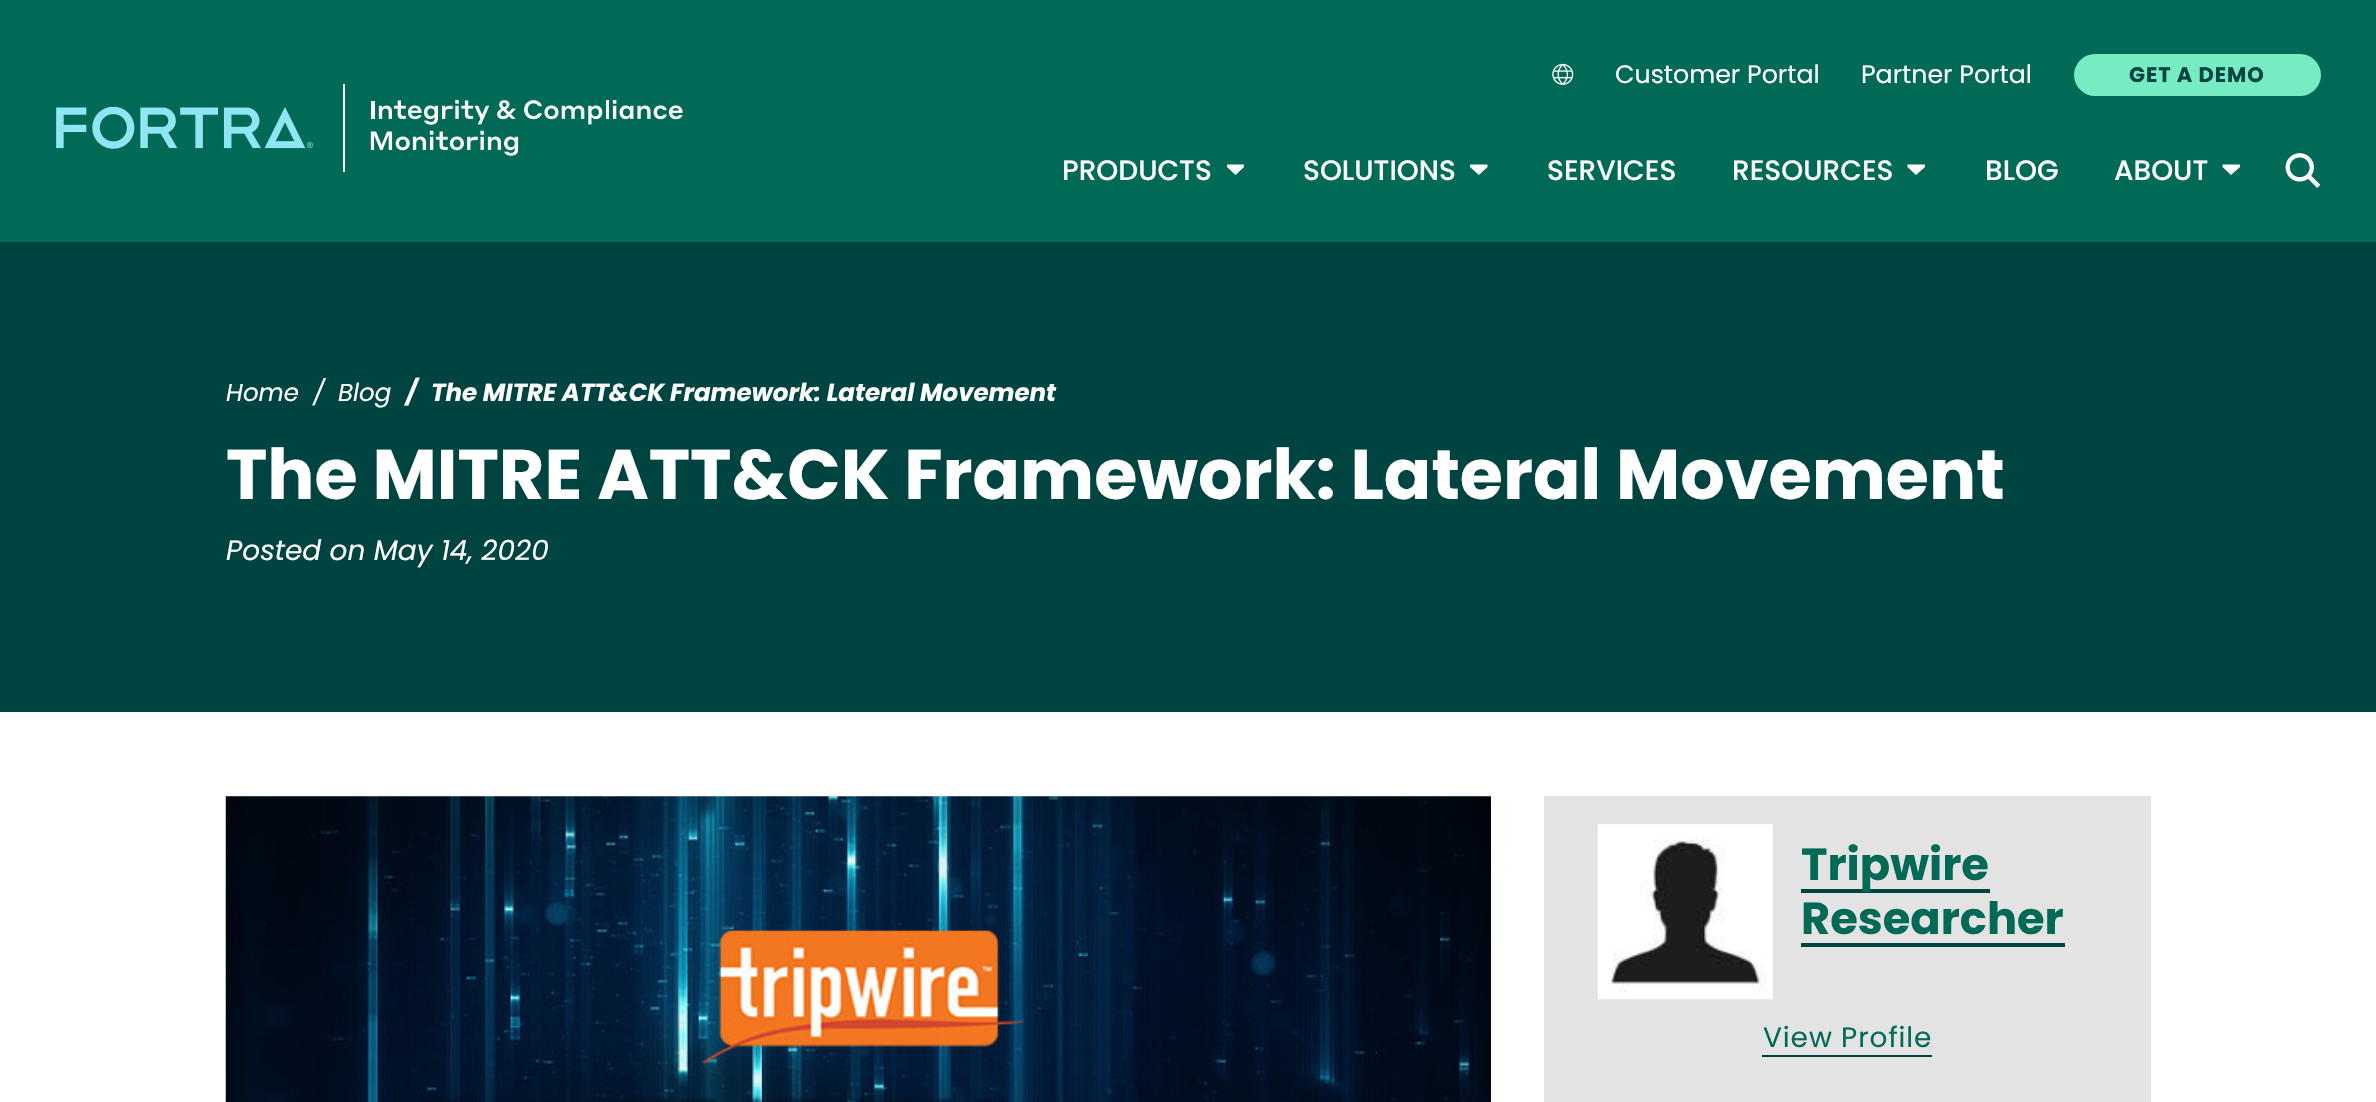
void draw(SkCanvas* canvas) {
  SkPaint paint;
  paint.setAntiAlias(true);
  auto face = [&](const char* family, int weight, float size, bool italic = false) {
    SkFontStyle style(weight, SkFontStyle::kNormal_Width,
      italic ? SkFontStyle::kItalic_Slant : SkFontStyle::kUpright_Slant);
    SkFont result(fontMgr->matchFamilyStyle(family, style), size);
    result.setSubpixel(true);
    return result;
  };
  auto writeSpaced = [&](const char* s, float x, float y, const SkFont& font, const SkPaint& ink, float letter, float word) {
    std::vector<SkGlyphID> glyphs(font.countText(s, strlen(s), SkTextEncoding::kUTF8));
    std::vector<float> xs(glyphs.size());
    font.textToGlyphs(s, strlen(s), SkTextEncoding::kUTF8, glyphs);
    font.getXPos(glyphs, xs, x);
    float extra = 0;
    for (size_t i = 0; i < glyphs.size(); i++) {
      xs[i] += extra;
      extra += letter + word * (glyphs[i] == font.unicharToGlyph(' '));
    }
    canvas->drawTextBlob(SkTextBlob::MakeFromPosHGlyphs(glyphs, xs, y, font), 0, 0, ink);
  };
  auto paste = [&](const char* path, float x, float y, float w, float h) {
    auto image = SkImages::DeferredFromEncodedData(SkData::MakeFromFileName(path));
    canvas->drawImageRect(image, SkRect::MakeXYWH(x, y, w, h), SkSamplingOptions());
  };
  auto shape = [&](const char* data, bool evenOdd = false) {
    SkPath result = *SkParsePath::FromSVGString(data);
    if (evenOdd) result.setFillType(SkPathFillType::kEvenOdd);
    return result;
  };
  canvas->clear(0xffffffff);
  paint.setColor(0xff006a56);
  canvas->drawRect(SkRect::MakeXYWH(0, 0, 2376, 242), paint);
  paste("img/1.png", 56, 107, 257, 42);
  paint.setColor(0xffffffff);
  canvas->drawRect(SkRect::MakeXYWH(343, 84, 2, 88), paint);
  paste("img/2.png", 370, 100, 313, 56);
  paste("img/3.png", 1552, 63, 22, 22);
  paint.setColor(0xff77ecc2);
  canvas->drawRoundRect(SkRect::MakeXYWH(2074, 54, 247, 42), 21, 21, paint);
  paint.setColor(0xffffffff);
  canvas->drawPath(shape("M1244 167L1235.5 175L1227 167V164.5H1244Z"), paint);
  canvas->drawPath(shape("M1487.5 167L1479 175L1470 167V164.5H1487.5Z"), paint);
  canvas->drawPath(shape("M1925 167L1916 175L1907.5 167V164.5H1925Z"), paint);
  canvas->drawPath(shape("M2240 167L2231 175L2222.5 167V164.5H2240Z"), paint);
  paste("img/4.png", 2285, 153, 36, 35);
  paint.setColor(0xff004442);
  canvas->drawRect(SkRect::MakeXYWH(0, 242, 2376, 470), paint);
  paste("img/5.png", 225, 796, 1266, 306);
  paint.setColor(0xffe3e3e3);
  canvas->drawRect(SkRect::MakeXYWH(1544, 796, 607, 306), paint);
  paste("img/6.png", 1597, 824, 176, 176);
  {
    const struct { float x, y, w, h; SkColor color; } items[] = {
      {1801, 889, 189, 4, 0xff004442},
      {1801, 943, 264, 4, 0xff004442},
      {1762, 1055, 170, 2, 0xff004442},
    };
    for (auto [x, y, w, h, color] : items) {
      paint.setColor(color);
      canvas->drawRect(SkRect::MakeXYWH(x, y, w, h), paint);
    }
  }
  auto f0 = face("Poppins", 400, 25.25f);
  paint.setColor(0xffffffff);
  canvas->drawString("Customer Portal", 1615, 83, f0, paint);
  canvas->drawString("Partner Portal", 1861, 83, f0, paint);
  auto f1 = face("Poppins", 700, 21);
  paint.setColor(0xff004442);
  writeSpaced("GET A DEMO", 2129, 82, f1, paint, 0.9f, 0);
  auto f2 = face("Poppins", 500, 28);
  paint.setColor(0xffffffff);
  {
    const struct { const char* s; float x, y; } items[] = {
      {"PRODUCTS", 1062, 180},
      {"SOLUTIONS", 1303, 180},
      {"SERVICES", 1547, 180},
      {"RESOURCES", 1732, 180},
      {"BLOG", 1985, 180},
      {"ABOUT", 2114, 180},
    };
    for (auto [s, x, y] : items) {
      canvas->drawString(s, x, y, f2, paint);
    }
  }
  auto f3 = face("Poppins", 400, 24.5f, true);
  {
    const struct { const char* s; float x, y; } items[] = {
      {"Home", 226, 401},
      {"/", 313, 401},
      {"Blog", 338, 401},
    };
    for (auto [s, x, y] : items) {
      canvas->drawString(s, x, y, f3, paint);
    }
  }
  auto f4 = face("Poppins", 700, 24.5f, true);
  canvas->drawString("/", 406, 401, f4, paint);
  canvas->drawString("The MITRE ATT&CK Framework: Lateral Movement", 431, 401, f4, paint);
  auto f5 = face("Poppins", 700, 70);
  canvas->drawString("The MITRE ATT&CK Framework: Lateral Movement", 226, 499, f5, paint);
  auto f6 = face("Poppins", 400, 28, true);
  canvas->drawString("Posted on May 14, 2020", 226, 560, f6, paint);
  auto f7 = face("Poppins", 700, 44.75f);
  paint.setColor(0xff006a56);
  canvas->drawString("Tripwire", 1801, 880, f7, paint);
  canvas->drawString("Researcher", 1801, 934, f7, paint);
  auto f8 = face("Poppins", 400, 28);
  writeSpaced("View Profile", 1763, 1047, f8, paint, 0.9f, 0);
}
